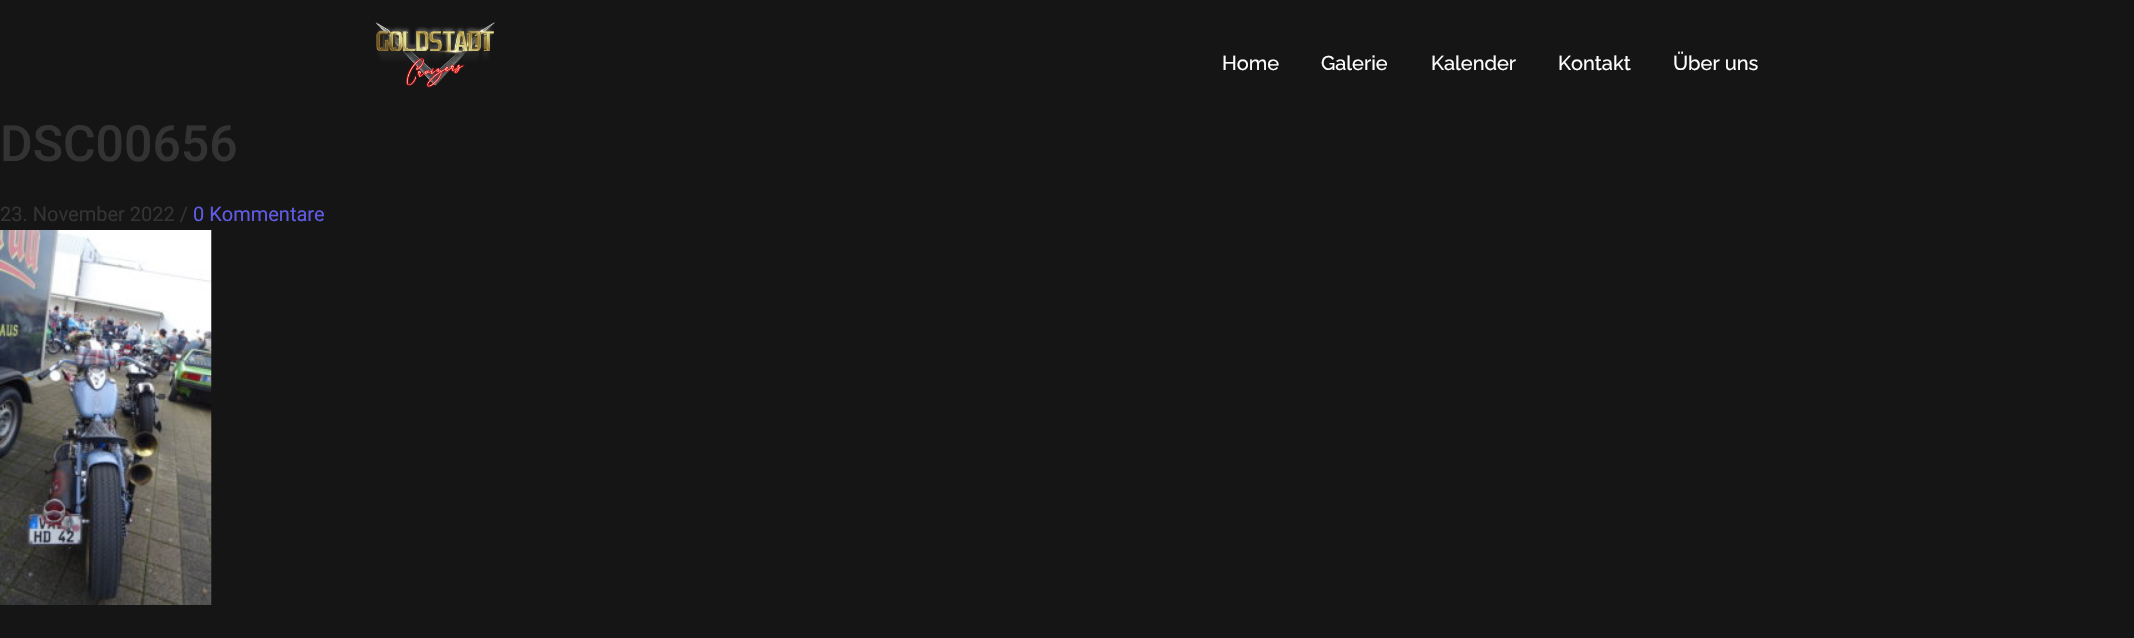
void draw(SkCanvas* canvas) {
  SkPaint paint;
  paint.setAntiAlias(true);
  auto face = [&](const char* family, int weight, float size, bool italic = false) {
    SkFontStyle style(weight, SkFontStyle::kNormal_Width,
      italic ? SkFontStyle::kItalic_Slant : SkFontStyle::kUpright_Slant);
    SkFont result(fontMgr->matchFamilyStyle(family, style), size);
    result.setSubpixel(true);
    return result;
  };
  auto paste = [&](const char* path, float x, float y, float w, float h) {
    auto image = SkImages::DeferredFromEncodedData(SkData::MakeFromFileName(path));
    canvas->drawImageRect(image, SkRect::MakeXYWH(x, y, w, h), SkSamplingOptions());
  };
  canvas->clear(0xff151515);
  paste("img/1.png", 375, 22, 120, 66);
  paste("img/2.png", 0, 230, 212, 375);
  auto f0 = face("Raleway", 500, 20);
  paint.setColor(0xffffffff);
  {
    const struct { const char* s; float x, y; } items[] = {
      {"Home", 1222, 70},
      {"Galerie", 1321, 70},
      {"Kalender", 1431, 70},
      {"Kontakt", 1558, 70},
      {"Über uns", 1673, 70},
    };
    for (auto [s, x, y] : items) {
      canvas->drawString(s, x, y, f0, paint);
    }
  }
  auto f1 = face("Roboto", 500, 50);
  paint.setColor(0xff333333);
  canvas->drawString("DSC00656", 0, 161, f1, paint);
  auto f2 = face("Roboto", 400, 20);
  canvas->drawString("23. November 2022 /", 0, 221, f2, paint);
  paint.setColor(0xff605be5);
  canvas->drawString("0 Kommentare", 193, 221, f2, paint);
}
